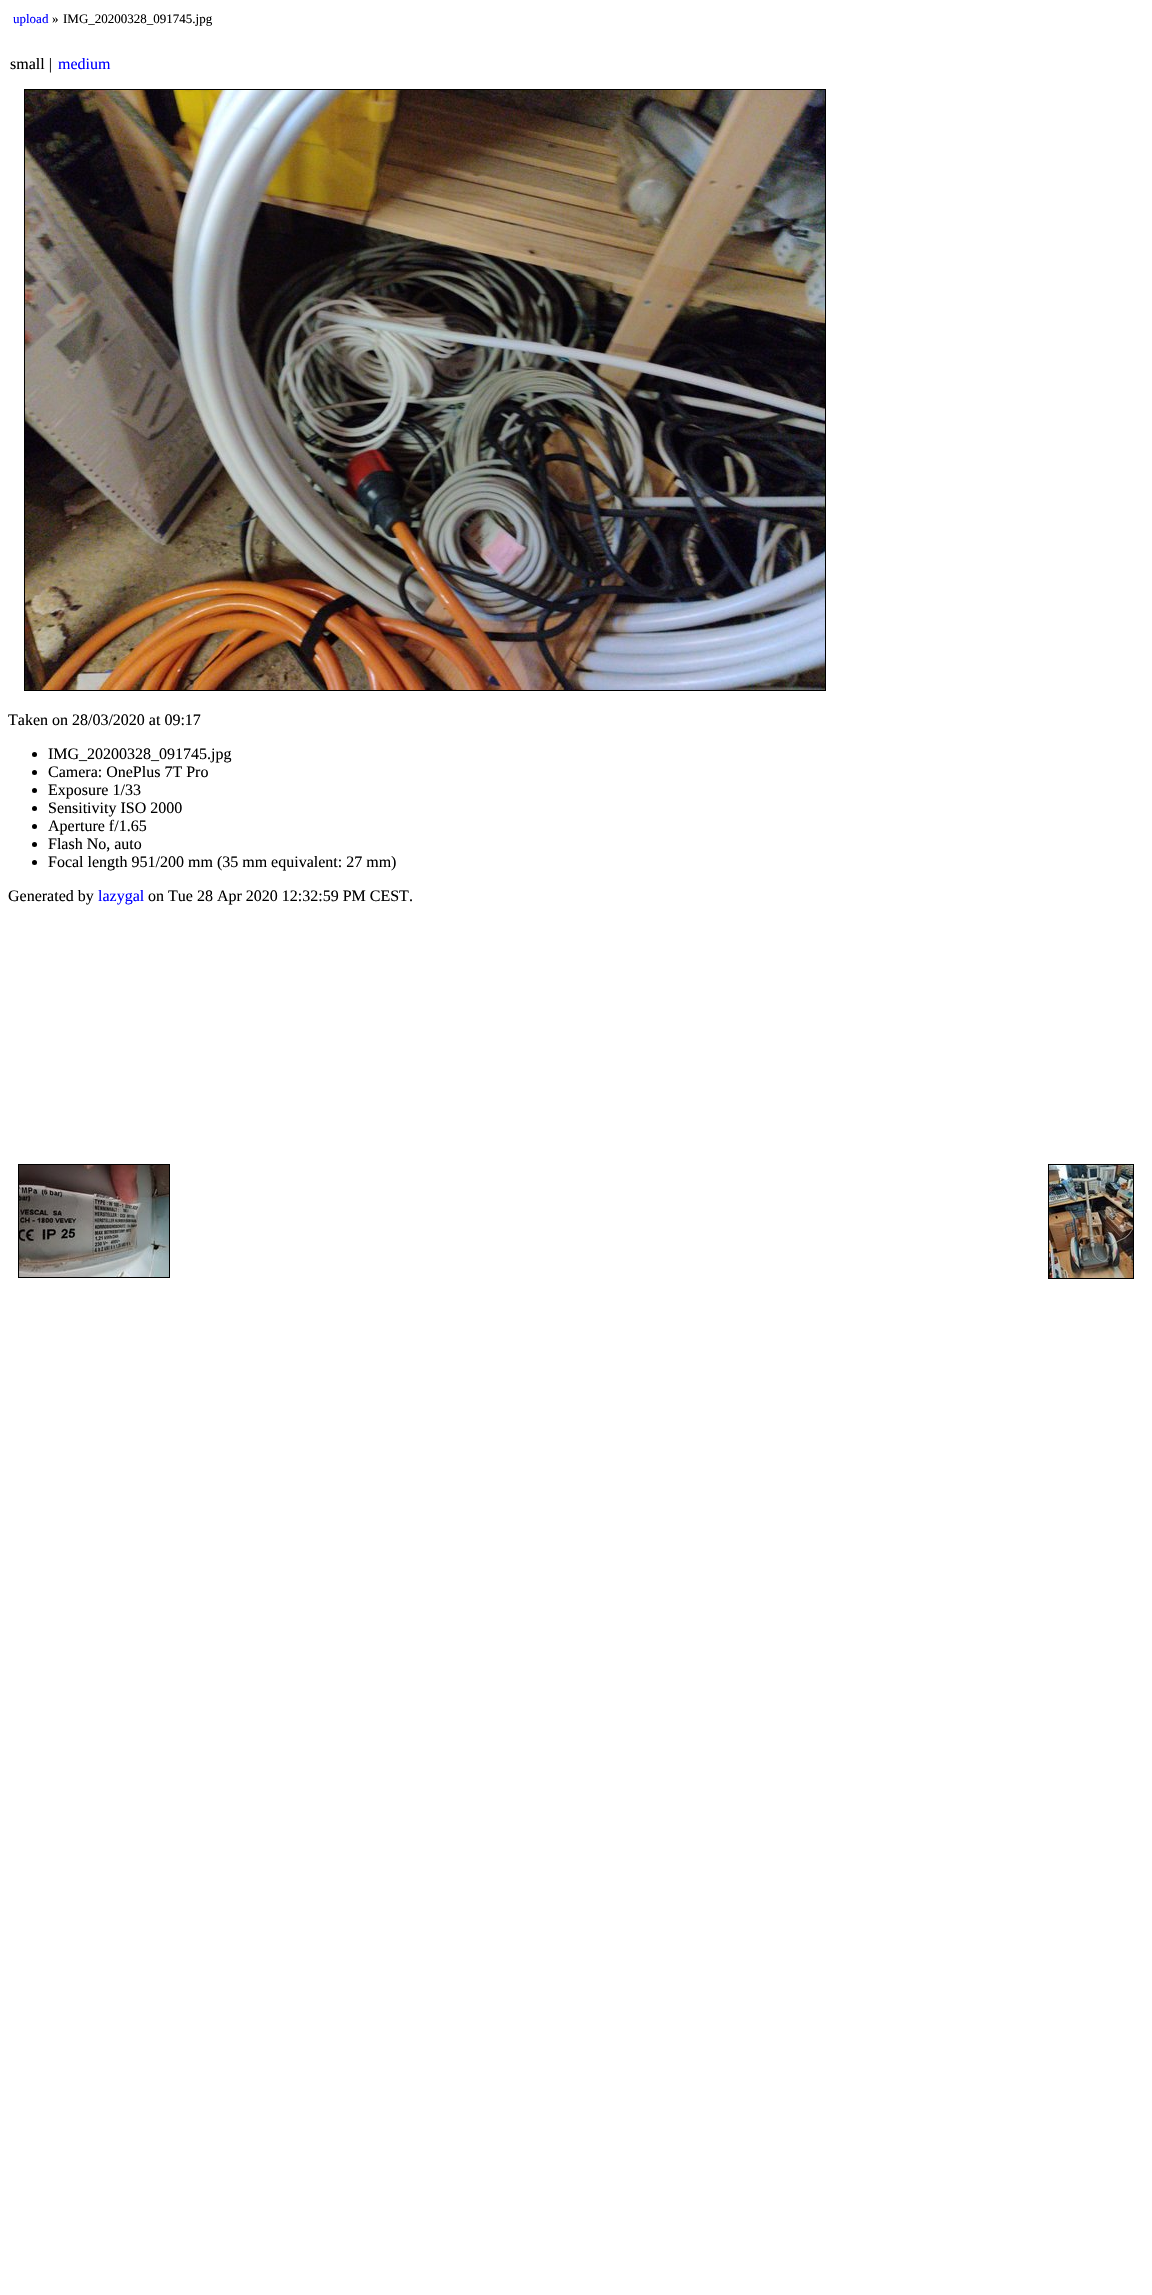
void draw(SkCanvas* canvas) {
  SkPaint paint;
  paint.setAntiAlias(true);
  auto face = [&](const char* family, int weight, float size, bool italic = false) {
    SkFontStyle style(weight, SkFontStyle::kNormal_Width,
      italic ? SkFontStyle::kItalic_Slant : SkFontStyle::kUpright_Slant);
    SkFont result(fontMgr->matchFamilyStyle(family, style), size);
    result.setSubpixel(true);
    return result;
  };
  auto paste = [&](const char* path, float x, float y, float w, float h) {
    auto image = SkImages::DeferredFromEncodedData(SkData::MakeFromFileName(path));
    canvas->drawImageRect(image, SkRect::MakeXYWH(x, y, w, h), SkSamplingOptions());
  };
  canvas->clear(0xffffffff);
  paint.setStroke(true);
  paint.setStrokeWidth(1);
  paint.setColor(0xff000000);
  canvas->drawRect(SkRect::MakeXYWH(24.5f, 89.5f, 801, 601), paint);
  paste("img/1.png", 25, 90, 800, 600);
  paint.setStroke(false);
  canvas->drawCircle(34.5f, 754.5f, 2.5f, paint);
  canvas->drawCircle(34.5f, 772.5f, 2.5f, paint);
  canvas->drawCircle(34.5f, 790.5f, 2.5f, paint);
  canvas->drawCircle(34.5f, 808.5f, 2.5f, paint);
  canvas->drawCircle(34.5f, 826.5f, 2.5f, paint);
  canvas->drawCircle(34.5f, 844.5f, 2.5f, paint);
  canvas->drawCircle(34.5f, 862.5f, 2.5f, paint);
  paint.setStroke(true);
  canvas->drawRect(SkRect::MakeXYWH(18.5f, 1164.5f, 151, 113), paint);
  paste("img/2.png", 19, 1165, 150, 112);
  canvas->drawRect(SkRect::MakeXYWH(1048.5f, 1164.5f, 85, 114), paint);
  paste("img/3.png", 1049, 1165, 84, 113);
  auto f0 = face("Liberation Serif", 400, 13);
  paint.setStroke(false);
  paint.setColor(0xff0000ff);
  canvas->drawString("upload", 13, 23, f0, paint);
  paint.setColor(0xff000000);
  canvas->drawString("»", 52, 23, f0, paint);
  canvas->drawString("IMG_20200328_091745.jpg", 63, 23, f0, paint);
  auto f1 = face("Liberation Serif", 400, 16);
  canvas->drawString("small |", 10, 69, f1, paint);
  paint.setColor(0xff0000ff);
  canvas->drawString("medium", 58, 69, f1, paint);
  paint.setColor(0xff000000);
  {
    const struct { const char* s; float x, y; } items[] = {
      {"Taken on 28/03/2020 at 09:17", 8, 725},
      {"IMG_20200328_091745.jpg", 48, 759},
      {"Camera: OnePlus 7T Pro", 48, 777},
      {"Exposure 1/33", 48, 795},
      {"Sensitivity ISO 2000", 48, 813},
      {"Aperture f/1.65", 48, 831},
      {"Flash No, auto", 48, 849},
      {"Focal length 951/200 mm (35 mm equivalent: 27 mm)", 48, 867},
      {"Generated by", 8, 901},
    };
    for (auto [s, x, y] : items) {
      canvas->drawString(s, x, y, f1, paint);
    }
  }
  paint.setColor(0xff0000ff);
  canvas->drawString("lazygal", 98, 901, f1, paint);
  paint.setColor(0xff000000);
  canvas->drawString("on Tue 28 Apr 2020 12:32:59 PM CEST.", 148, 901, f1, paint);
}
